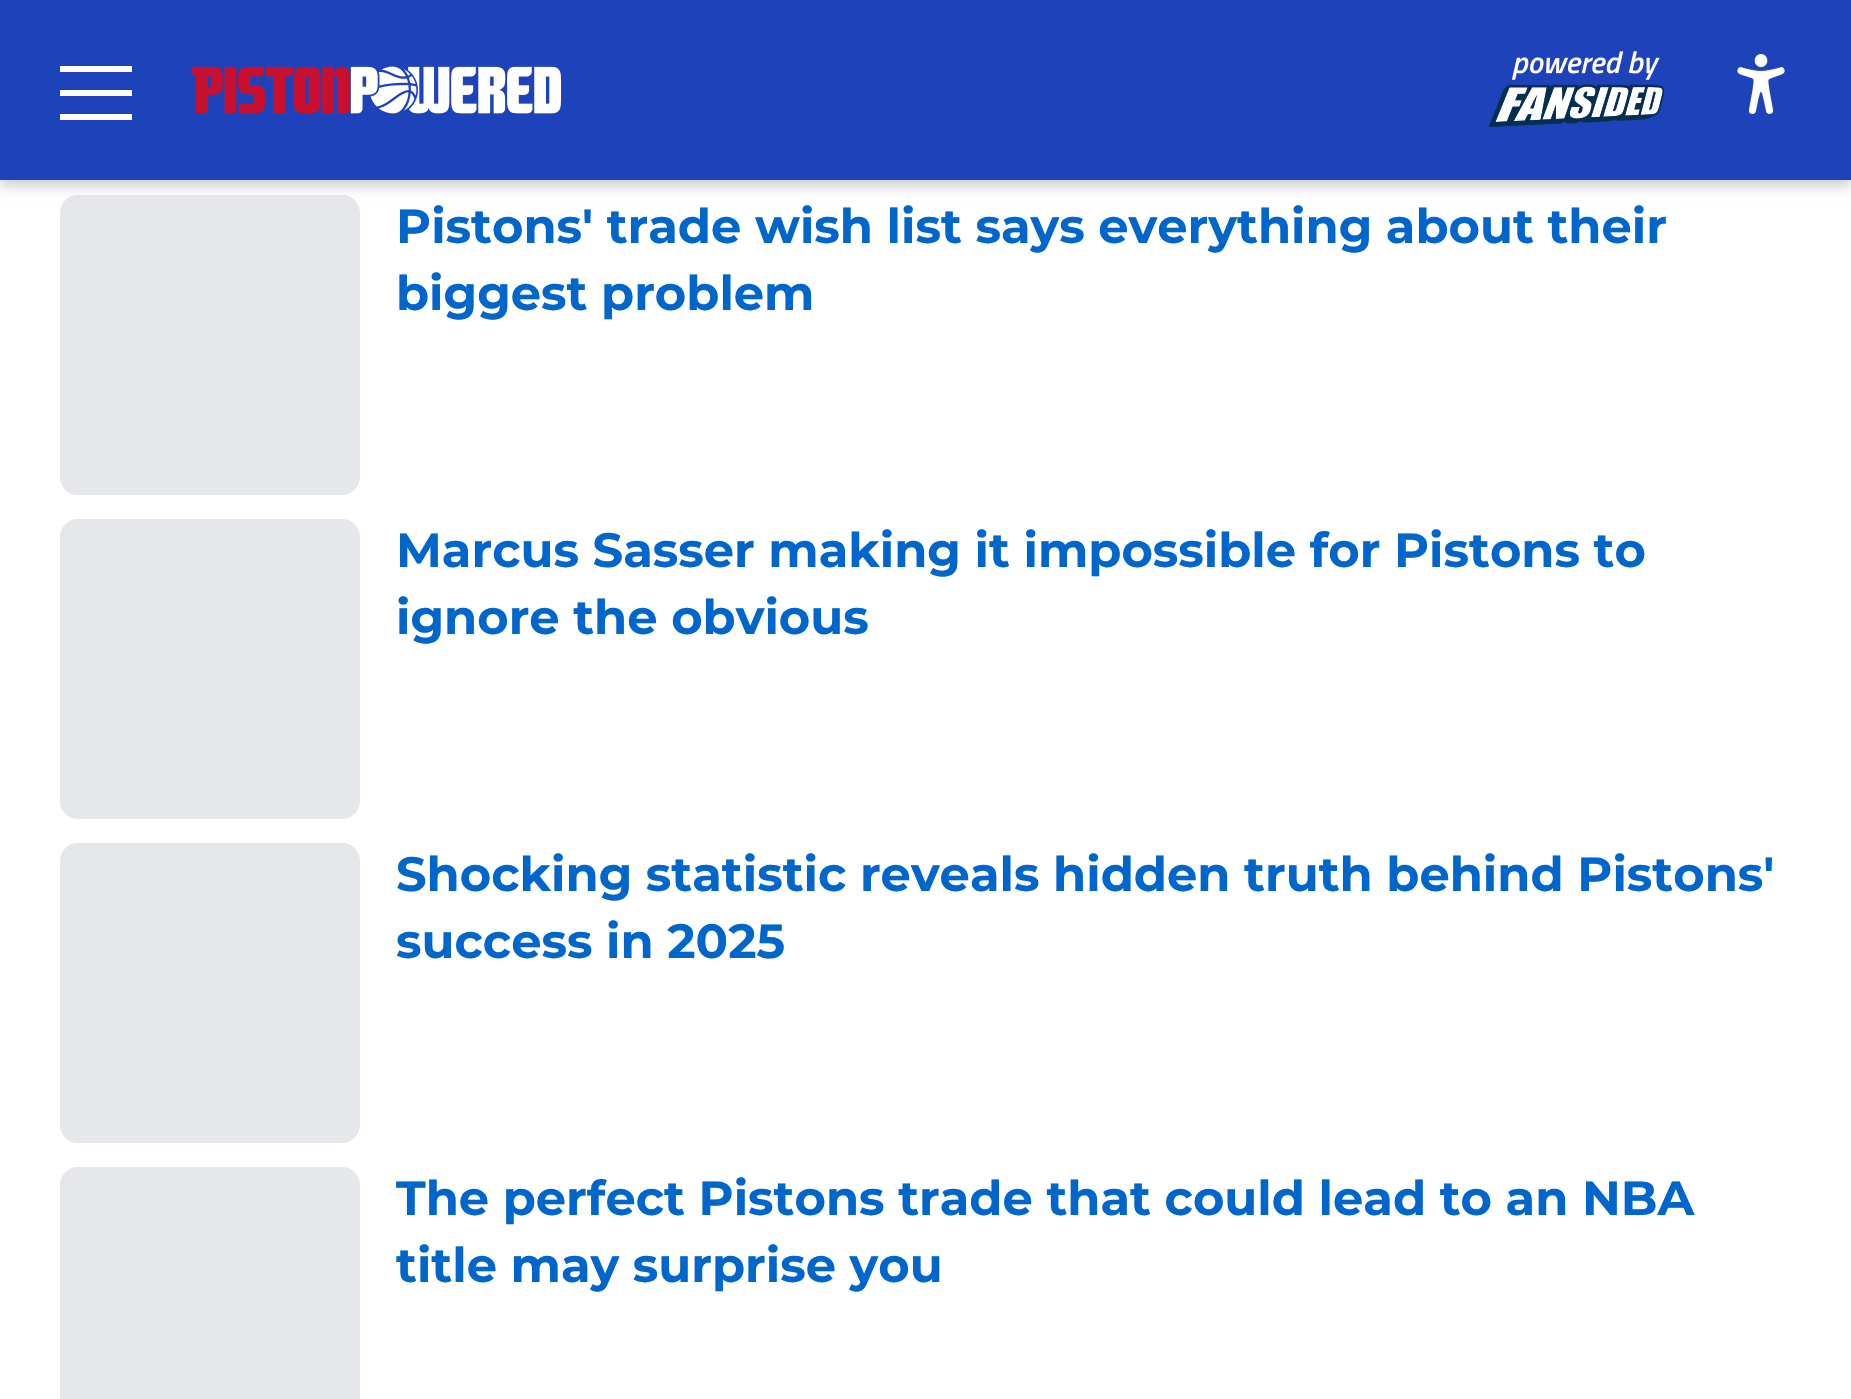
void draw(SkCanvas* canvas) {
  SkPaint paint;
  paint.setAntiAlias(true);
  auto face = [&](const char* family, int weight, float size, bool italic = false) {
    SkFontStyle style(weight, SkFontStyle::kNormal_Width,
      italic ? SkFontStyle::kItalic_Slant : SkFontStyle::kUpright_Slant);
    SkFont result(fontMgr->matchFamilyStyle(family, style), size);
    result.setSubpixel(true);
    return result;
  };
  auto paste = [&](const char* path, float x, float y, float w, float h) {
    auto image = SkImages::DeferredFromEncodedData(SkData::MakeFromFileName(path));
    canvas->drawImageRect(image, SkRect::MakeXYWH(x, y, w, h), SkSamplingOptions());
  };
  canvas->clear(0xffffffff);
  paint.setColor(0xffe5e7eb);
  canvas->drawRoundRect(SkRect::MakeXYWH(60, 195, 300, 300), 18, 18, paint);
  paint.setColor(0x33000000);
  paint.setMaskFilter(SkMaskFilter::MakeBlur(kNormal_SkBlurStyle, 6));
  canvas->drawRect(SkRect::MakeXYWH(0, 6, 1851, 180), paint);
  paint.setMaskFilter(nullptr);
  {
    const struct { float x, y, w, h; SkColor color; } items[] = {
      {0, 0, 1851, 180, 0xff1d42ba},
      {60, 66, 72, 6, 0xffffffff},
      {60, 90, 72, 6, 0xffffffff},
      {60, 114, 72, 6, 0xffffffff},
    };
    for (auto [x, y, w, h, color] : items) {
      paint.setColor(color);
      canvas->drawRect(SkRect::MakeXYWH(x, y, w, h), paint);
    }
  }
  paste("img/1.png", 192, 66, 369, 48);
  paste("img/2.png", 1488, 51, 177, 77);
  paste("img/3.png", 1737, 54, 48, 60);
  paint.setColor(0xffe5e7eb);
  canvas->drawRoundRect(SkRect::MakeXYWH(60, 519, 300, 300), 18, 18, paint);
  canvas->drawRoundRect(SkRect::MakeXYWH(60, 843, 300, 300), 18, 18, paint);
  canvas->drawRoundRect(SkRect::MakeXYWH(60, 1167, 300, 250), 18, 18, paint);
  auto f0 = face("Montserrat", 100, 48);
  paint.setColor(0xff0066cc);
  {
    const struct { const char* s; float x, y; } items[] = {
      {"Pistons' trade wish list says everything about their", 396, 243},
      {"biggest problem", 396, 310},
      {"Marcus Sasser making it impossible for Pistons to", 396, 567},
      {"ignore the obvious", 396, 634},
      {"Shocking statistic reveals hidden truth behind Pistons'", 396, 891},
      {"success in 2025", 396, 958},
      {"The perfect Pistons trade that could lead to an NBA", 396, 1215},
      {"title may surprise you", 396, 1282},
    };
    for (auto [s, x, y] : items) {
      canvas->drawString(s, x, y, f0, paint);
    }
  }
}
